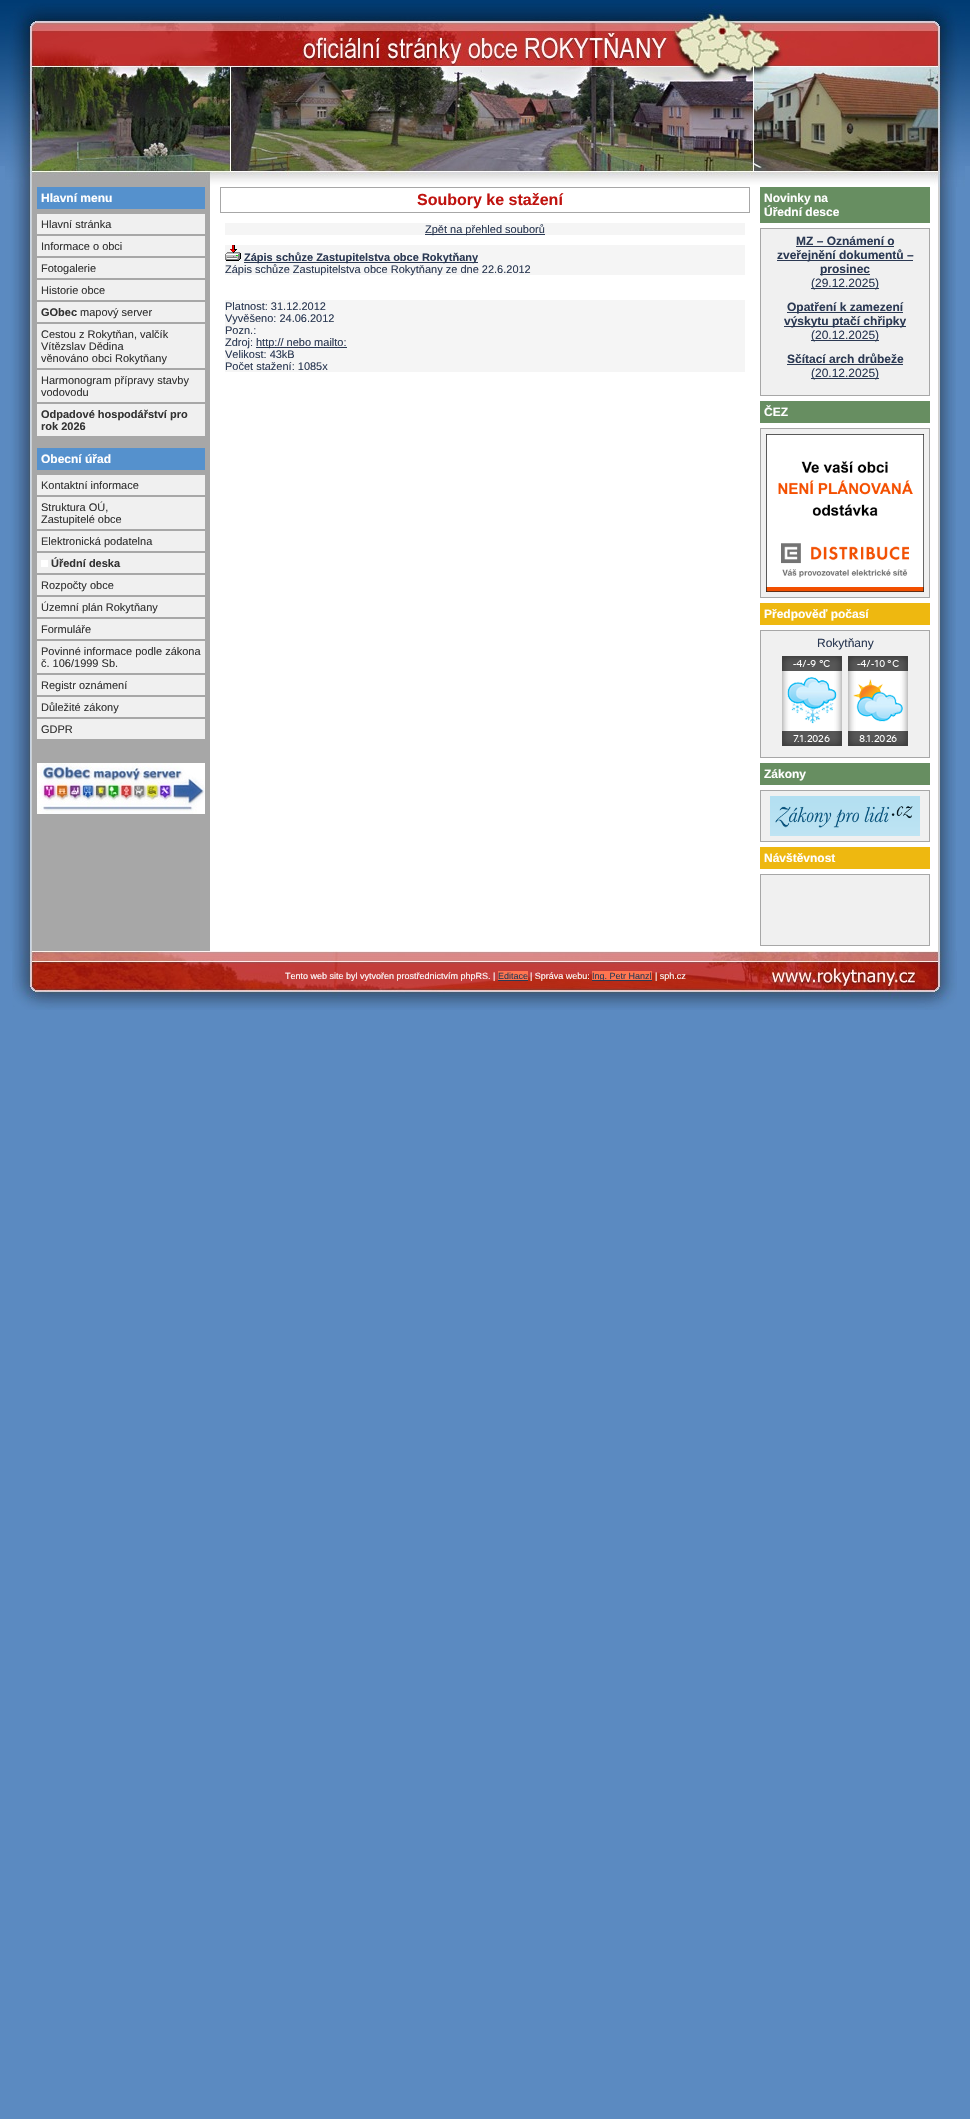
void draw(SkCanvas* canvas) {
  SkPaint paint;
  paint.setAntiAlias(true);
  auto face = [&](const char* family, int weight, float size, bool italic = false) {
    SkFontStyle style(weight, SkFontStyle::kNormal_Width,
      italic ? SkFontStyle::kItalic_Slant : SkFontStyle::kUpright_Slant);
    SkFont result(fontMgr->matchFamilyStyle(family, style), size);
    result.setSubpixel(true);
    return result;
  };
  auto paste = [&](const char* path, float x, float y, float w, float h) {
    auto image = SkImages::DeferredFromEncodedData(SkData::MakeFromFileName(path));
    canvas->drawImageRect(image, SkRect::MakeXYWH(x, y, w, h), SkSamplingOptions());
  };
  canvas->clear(0xff5b8ac1);
  paste("img/1.png", 0, 0, 970, 166);
  paste("img/2.png", 5, 3, 960, 184);
  paint.setColor(0xffa7a7a7);
  canvas->drawRect(SkRect::MakeXYWH(32, 187, 178, 764), paint);
  paste("img/3.png", 5, 187, 27, 764);
  {
    const struct { float x, y, w, h; SkColor color; } items[] = {
      {37, 187, 168, 22, 0xff5591cd},
      {37, 214, 168, 20, 0xfff0f0f0},
      {37, 236, 168, 20, 0xfff0f0f0},
      {37, 258, 168, 20, 0xfff0f0f0},
      {37, 280, 168, 20, 0xfff0f0f0},
      {37, 302, 168, 20, 0xfff0f0f0},
      {37, 324, 168, 44, 0xfff0f0f0},
      {37, 370, 168, 32, 0xfff0f0f0},
      {37, 404, 168, 32, 0xfff0f0f0},
      {37, 448, 168, 22, 0xff5591cd},
      {37, 475, 168, 20, 0xfff0f0f0},
      {37, 497, 168, 32, 0xfff0f0f0},
      {37, 531, 168, 20, 0xfff0f0f0},
      {37, 553, 168, 20, 0xfff0f0f0},
      {41, 560, 7, 7, 0xffffffff},
      {37, 575, 168, 20, 0xfff0f0f0},
      {37, 597, 168, 20, 0xfff0f0f0},
      {37, 619, 168, 20, 0xfff0f0f0},
      {37, 641, 168, 32, 0xfff0f0f0},
      {37, 675, 168, 20, 0xfff0f0f0},
      {37, 697, 168, 20, 0xfff0f0f0},
      {37, 719, 168, 20, 0xfff0f0f0},
    };
    for (auto [x, y, w, h, color] : items) {
      paint.setColor(color);
      canvas->drawRect(SkRect::MakeXYWH(x, y, w, h), paint);
    }
  }
  paste("img/4.png", 37, 763, 168, 51);
  paint.setColor(0xffffffff);
  canvas->drawRect(SkRect::MakeXYWH(210, 187, 550, 764), paint);
  paint.setStroke(true);
  paint.setStrokeWidth(1);
  paint.setColor(0xffa7a7a7);
  canvas->drawRect(SkRect::MakeXYWH(220.5f, 187.5f, 529, 25), paint);
  paint.setStroke(false);
  {
    const struct { float x, y, w, h; SkColor color; } items[] = {
      {225, 223, 520, 12, 0xfff5f5f5},
      {425, 234, 120, 1, 0xff2b3953},
      {225, 245, 520, 30, 0xfff5f5f5},
    };
    for (auto [x, y, w, h, color] : items) {
      paint.setColor(color);
      canvas->drawRect(SkRect::MakeXYWH(x, y, w, h), paint);
    }
  }
  paste("img/5.png", 225, 245, 16, 16);
  {
    const struct { float x, y, w, h; SkColor color; } items[] = {
      {244, 262, 234, 1, 0xff2b3953},
      {225, 300, 520, 72, 0xfff5f5f5},
      {256, 347, 91, 1, 0xff2b3953},
    };
    for (auto [x, y, w, h, color] : items) {
      paint.setColor(color);
      canvas->drawRect(SkRect::MakeXYWH(x, y, w, h), paint);
    }
  }
  paste("img/6.png", 760, 187, 196, 764);
  paint.setColor(0xff678e61);
  canvas->drawRect(SkRect::MakeXYWH(760, 187, 170, 36), paint);
  paint.setColor(0xfff0f0f0);
  canvas->drawRect(SkRect::MakeXYWH(760.5f, 228.5f, 169, 167), paint);
  paint.setStroke(true);
  paint.setColor(0xffa7a7a7);
  canvas->drawRect(SkRect::MakeXYWH(760.5f, 228.5f, 169, 167), paint);
  paint.setStroke(false);
  {
    const struct { float x, y, w, h; SkColor color; } items[] = {
      {796, 246, 98, 1, 0xff2b3953},
      {777, 260, 136, 1, 0xff2b3953},
      {820, 274, 50, 1, 0xff2b3953},
      {811, 288, 68, 1, 0xff2b3953},
      {787, 312, 116, 1, 0xff2b3953},
      {784, 326, 122, 1, 0xff2b3953},
      {811, 340, 68, 1, 0xff2b3953},
      {787, 364, 116, 1, 0xff2b3953},
      {811, 378, 68, 1, 0xff2b3953},
      {760, 401, 170, 22, 0xff678e61},
    };
    for (auto [x, y, w, h, color] : items) {
      paint.setColor(color);
      canvas->drawRect(SkRect::MakeXYWH(x, y, w, h), paint);
    }
  }
  paint.setColor(0xfff0f0f0);
  canvas->drawRect(SkRect::MakeXYWH(760.5f, 428.5f, 169, 169), paint);
  paint.setStroke(true);
  paint.setColor(0xffa7a7a7);
  canvas->drawRect(SkRect::MakeXYWH(760.5f, 428.5f, 169, 169), paint);
  paste("img/7.png", 766, 434, 158, 158);
  paint.setStroke(false);
  paint.setColor(0xffeeb810);
  canvas->drawRect(SkRect::MakeXYWH(760, 603, 170, 22), paint);
  paint.setColor(0xfff0f0f0);
  canvas->drawRect(SkRect::MakeXYWH(760.5f, 630.5f, 169, 127), paint);
  paint.setStroke(true);
  paint.setColor(0xffa7a7a7);
  canvas->drawRect(SkRect::MakeXYWH(760.5f, 630.5f, 169, 127), paint);
  paste("img/8.png", 782, 656, 126, 90);
  paint.setStroke(false);
  paint.setColor(0xff678e61);
  canvas->drawRect(SkRect::MakeXYWH(760, 763, 170, 22), paint);
  paint.setColor(0xfff0f0f0);
  canvas->drawRect(SkRect::MakeXYWH(760.5f, 790.5f, 169, 51), paint);
  paint.setStroke(true);
  paint.setColor(0xffa7a7a7);
  canvas->drawRect(SkRect::MakeXYWH(760.5f, 790.5f, 169, 51), paint);
  paste("img/9.png", 770, 796, 150, 40);
  paint.setStroke(false);
  paint.setColor(0xffeeb810);
  canvas->drawRect(SkRect::MakeXYWH(760, 847, 170, 22), paint);
  paint.setColor(0xfff0f0f0);
  canvas->drawRect(SkRect::MakeXYWH(760.5f, 874.5f, 169, 71), paint);
  paint.setStroke(true);
  paint.setColor(0xffa7a7a7);
  canvas->drawRect(SkRect::MakeXYWH(760.5f, 874.5f, 169, 71), paint);
  paste("img/10.png", 12, 951, 945, 59);
  paint.setStroke(false);
  {
    const struct { float x, y, w, h; SkColor color; } items[] = {
      {498, 971, 30, 9, 0xffff7550},
      {498, 980, 30, 1, 0xff2b3953},
      {592, 971, 60, 9, 0xffff7550},
      {592, 980, 60, 1, 0xff2b3953},
    };
    for (auto [x, y, w, h, color] : items) {
      paint.setColor(color);
      canvas->drawRect(SkRect::MakeXYWH(x, y, w, h), paint);
    }
  }
  auto f0 = face("Liberation Sans", 700, 12);
  paint.setColor(0xffffffff);
  canvas->drawString("Hlavní menu", 41, 202, f0, paint);
  auto f1 = face("Liberation Sans", 400, 11);
  paint.setColor(0xff333333);
  {
    const struct { const char* s; float x, y; } items[] = {
      {"Hlavní stránka", 41, 228},
      {"Informace o obci", 41, 250},
      {"Fotogalerie", 41, 272},
      {"Historie obce", 41, 294},
    };
    for (auto [s, x, y] : items) {
      canvas->drawString(s, x, y, f1, paint);
    }
  }
  auto f2 = face("Liberation Sans", 700, 11);
  canvas->drawString("GObec", 41, 316, f2, paint);
  {
    const struct { const char* s; float x, y; } items[] = {
      {"mapový server", 80, 316},
      {"Cestou z Rokytňan, valčík", 41, 338},
      {"Vítězslav Dědina", 41, 350},
      {"věnováno obci Rokytňany", 41, 362},
      {"Harmonogram přípravy stavby", 41, 384},
      {"vodovodu", 41, 396},
    };
    for (auto [s, x, y] : items) {
      canvas->drawString(s, x, y, f1, paint);
    }
  }
  canvas->drawString("Odpadové hospodářství pro", 41, 418, f2, paint);
  canvas->drawString("rok 2026", 41, 430, f2, paint);
  paint.setColor(0xffffffff);
  canvas->drawString("Obecní úřad", 41, 463, f0, paint);
  paint.setColor(0xff333333);
  {
    const struct { const char* s; float x, y; } items[] = {
      {"Kontaktní informace", 41, 489},
      {"Struktura OÚ,", 41, 511},
      {"Zastupitelé obce", 41, 523},
      {"Elektronická podatelna", 41, 545},
    };
    for (auto [s, x, y] : items) {
      canvas->drawString(s, x, y, f1, paint);
    }
  }
  canvas->drawString("Úřední deska", 51, 567, f2, paint);
  {
    const struct { const char* s; float x, y; } items[] = {
      {"Rozpočty obce", 41, 589},
      {"Územní plán Rokytňany", 41, 611},
      {"Formuláře", 41, 633},
      {"Povinné informace podle zákona", 41, 655},
      {"č. 106/1999 Sb.", 41, 667},
      {"Registr oznámení", 41, 689},
      {"Důležité zákony", 41, 711},
      {"GDPR", 41, 733},
    };
    for (auto [s, x, y] : items) {
      canvas->drawString(s, x, y, f1, paint);
    }
  }
  auto f3 = face("Liberation Sans", 700, 16);
  paint.setColor(0xffbf130f);
  canvas->drawString("Soubory ke stažení", 417, 205, f3, paint);
  paint.setColor(0xff2b3953);
  canvas->drawString("Zpět na přehled souborů", 425, 233, f1, paint);
  canvas->drawString("Zápis schůze Zastupitelstva obce Rokytňany", 244, 261, f2, paint);
  {
    const struct { const char* s; float x, y; } items[] = {
      {"Zápis schůze Zastupitelstva obce Rokytňany ze dne 22.6.2012", 225, 273},
      {"Platnost: 31.12.2012", 225, 310},
      {"Vyvěšeno: 24.06.2012", 225, 322},
      {"Pozn.:", 225, 334},
      {"Zdroj:", 225, 346},
      {"http:// nebo mailto:", 256, 346},
      {"Velikost: 43kB", 225, 358},
      {"Počet stažení: 1085x", 225, 370},
    };
    for (auto [s, x, y] : items) {
      canvas->drawString(s, x, y, f1, paint);
    }
  }
  paint.setColor(0xffffffff);
  canvas->drawString("Novinky na", 764, 202, f0, paint);
  canvas->drawString("Úřední desce", 764, 216, f0, paint);
  paint.setColor(0xff2b3953);
  {
    const struct { const char* s; float x, y; } items[] = {
      {"MZ – Oznámení o", 796, 245},
      {"zveřejnění dokumentů –", 777, 259},
      {"prosinec", 820, 273},
    };
    for (auto [s, x, y] : items) {
      canvas->drawString(s, x, y, f0, paint);
    }
  }
  auto f4 = face("Liberation Sans", 400, 12);
  canvas->drawString("(29.12.2025)", 811, 287, f4, paint);
  canvas->drawString("Opatření k zamezení", 787, 311, f0, paint);
  canvas->drawString("výskytu ptačí chřipky", 784, 325, f0, paint);
  canvas->drawString("(20.12.2025)", 811, 339, f4, paint);
  canvas->drawString("Sčítací arch drůbeže", 787, 363, f0, paint);
  canvas->drawString("(20.12.2025)", 811, 377, f4, paint);
  paint.setColor(0xffffffff);
  canvas->drawString("ČEZ", 764, 416, f0, paint);
  canvas->drawString("Předpověď počasí", 764, 618, f0, paint);
  paint.setColor(0xff2b3953);
  canvas->drawString("Rokytňany", 817, 647, f4, paint);
  paint.setColor(0xffffffff);
  canvas->drawString("Zákony", 764, 778, f0, paint);
  canvas->drawString("Návštěvnost", 764, 862, f0, paint);
  auto f5 = face("Liberation Sans", 400, 9);
  canvas->drawString("Tento web site byl vytvořen prostřednictvím phpRS. |", 285, 979, f5, paint);
  paint.setColor(0xff2b3953);
  canvas->drawString("Editace", 498, 979, f5, paint);
  paint.setColor(0xffffffff);
  canvas->drawString("| Správa webu:", 530, 979, f5, paint);
  paint.setColor(0xff2b3953);
  canvas->drawString("Ing. Petr Hanzl", 592, 979, f5, paint);
  paint.setColor(0xffffffff);
  canvas->drawString("| sph.cz", 655, 979, f5, paint);
}
